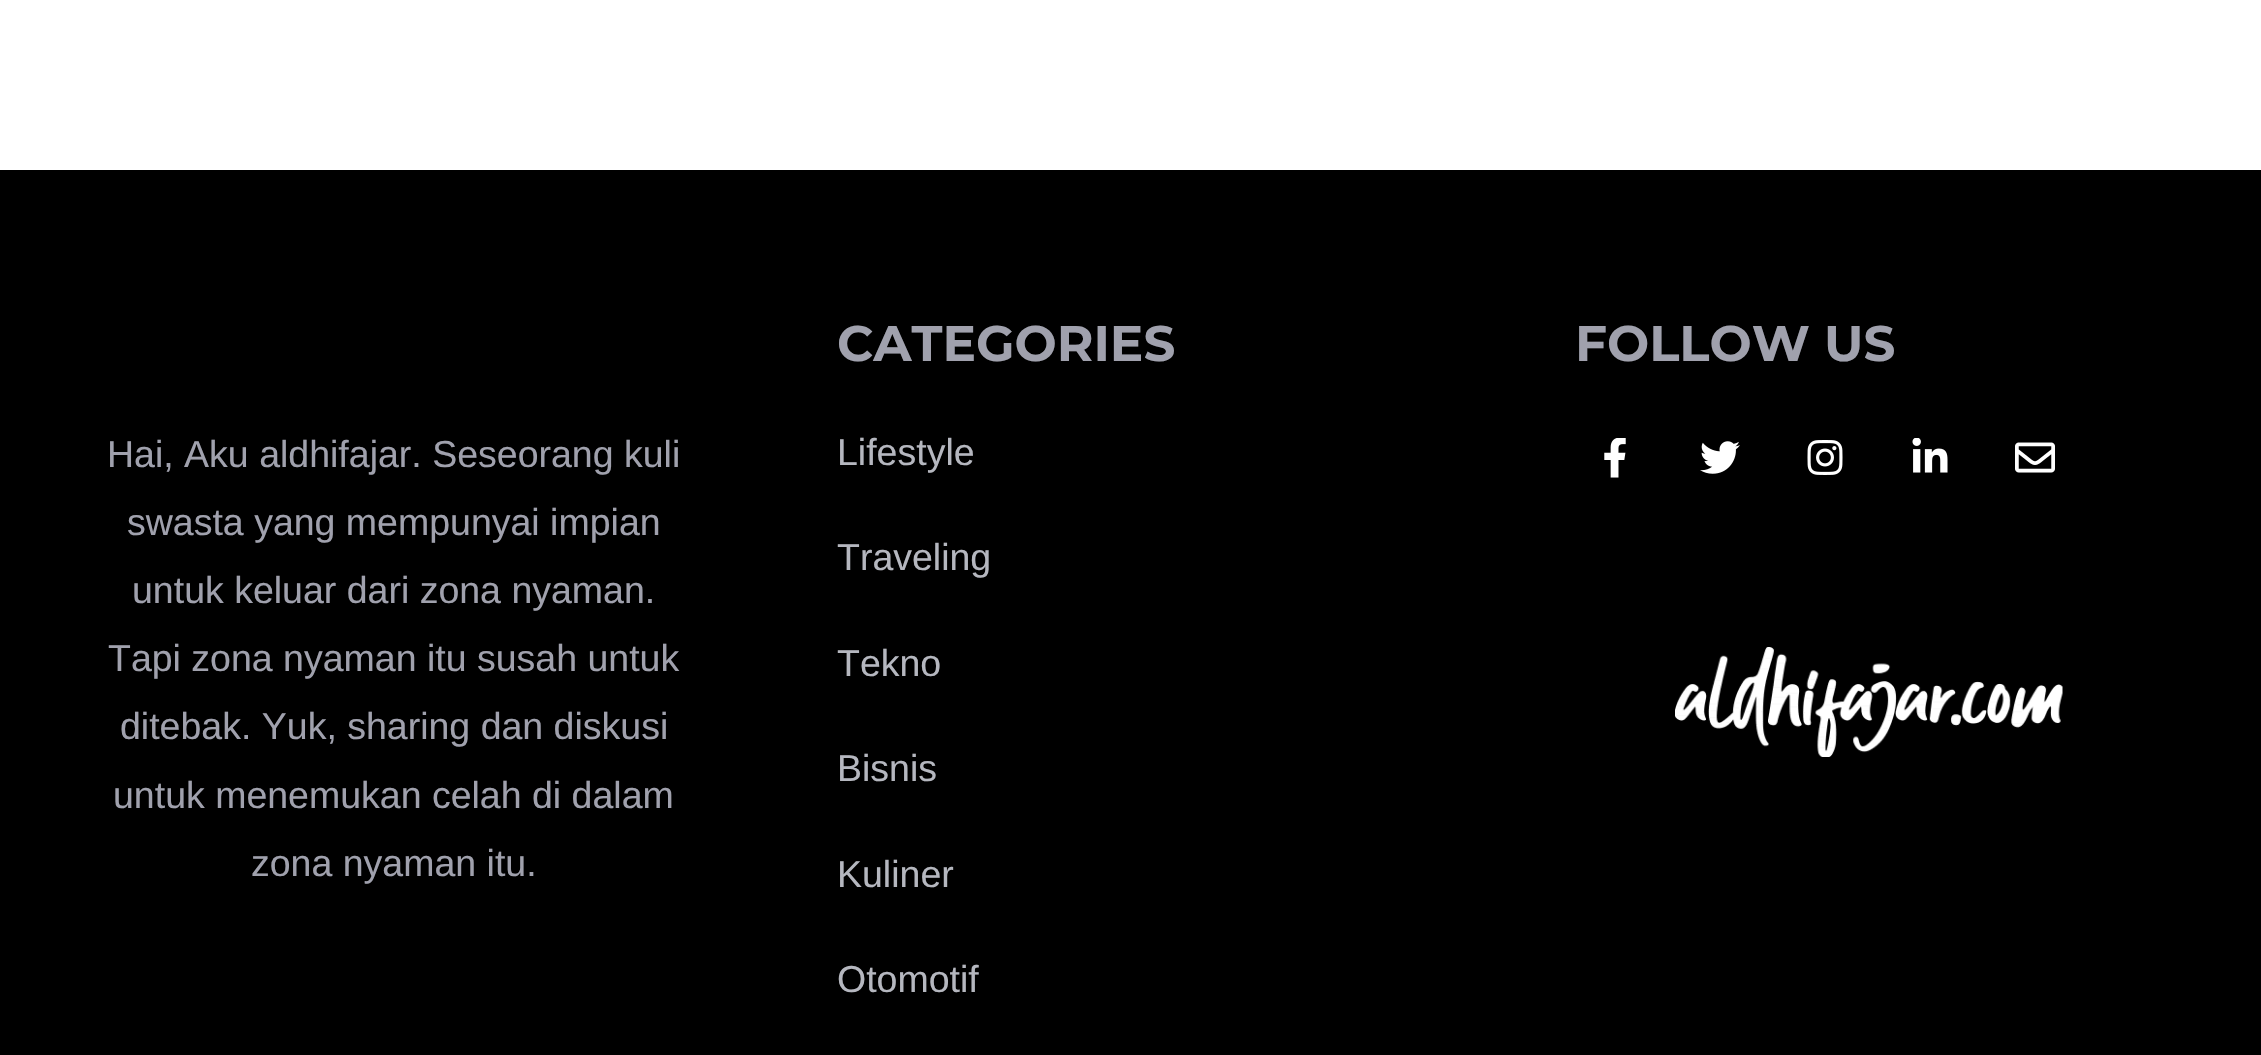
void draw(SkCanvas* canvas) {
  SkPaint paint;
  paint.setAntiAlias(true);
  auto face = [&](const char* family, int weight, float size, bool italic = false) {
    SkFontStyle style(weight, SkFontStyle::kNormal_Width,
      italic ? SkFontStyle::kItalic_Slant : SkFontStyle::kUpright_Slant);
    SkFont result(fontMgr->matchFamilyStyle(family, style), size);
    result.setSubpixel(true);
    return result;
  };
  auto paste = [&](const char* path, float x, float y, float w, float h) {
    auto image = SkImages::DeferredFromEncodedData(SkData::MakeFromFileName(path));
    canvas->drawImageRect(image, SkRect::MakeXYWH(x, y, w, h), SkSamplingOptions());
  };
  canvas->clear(0xffffffff);
  paint.setColor(0xff000000);
  canvas->drawRect(SkRect::MakeXYWH(0, 170, 2261, 885), paint);
  paste("img/1.png", 1604, 438, 22, 40);
  paste("img/2.png", 1700, 441, 40, 33);
  paste("img/3.png", 1807, 440, 36, 35);
  paste("img/4.png", 1912, 438, 36, 35);
  paste("img/5.png", 2015, 442, 40, 31);
  paste("img/6.png", 1675, 647, 388, 110);
  auto f0 = face("Montserrat", 700, 50);
  paint.setColor(0xffa0a1ad);
  canvas->drawString("CATEGORIES", 837, 361, f0, paint);
  auto f1 = face("Liberation Sans", 400, 37.5f);
  paint.setColor(0xffb5b7bf);
  {
    const struct { const char* s; float x, y; } items[] = {
      {"Lifestyle", 837, 465},
      {"Traveling", 837, 570},
      {"Tekno", 837, 676},
      {"Bisnis", 837, 781},
      {"Kuliner", 837, 887},
      {"Otomotif", 837, 992},
    };
    for (auto [s, x, y] : items) {
      canvas->drawString(s, x, y, f1, paint);
    }
  }
  paint.setColor(0xffa0a1ad);
  canvas->drawString("FOLLOW US", 1575, 361, f0, paint);
  {
    const struct { const char* s; float x, y; } items[] = {
      {"Hai, Aku aldhifajar. Seseorang kuli", 107, 467},
      {"swasta yang mempunyai impian", 127, 535},
      {"untuk keluar dari zona nyaman.", 132, 603},
      {"Tapi zona nyaman itu susah untuk", 108, 671},
      {"ditebak. Yuk, sharing dan diskusi", 120, 739},
      {"untuk menemukan celah di dalam", 113, 808},
      {"zona nyaman itu.", 251, 876},
    };
    for (auto [s, x, y] : items) {
      canvas->drawString(s, x, y, f1, paint);
    }
  }
}
